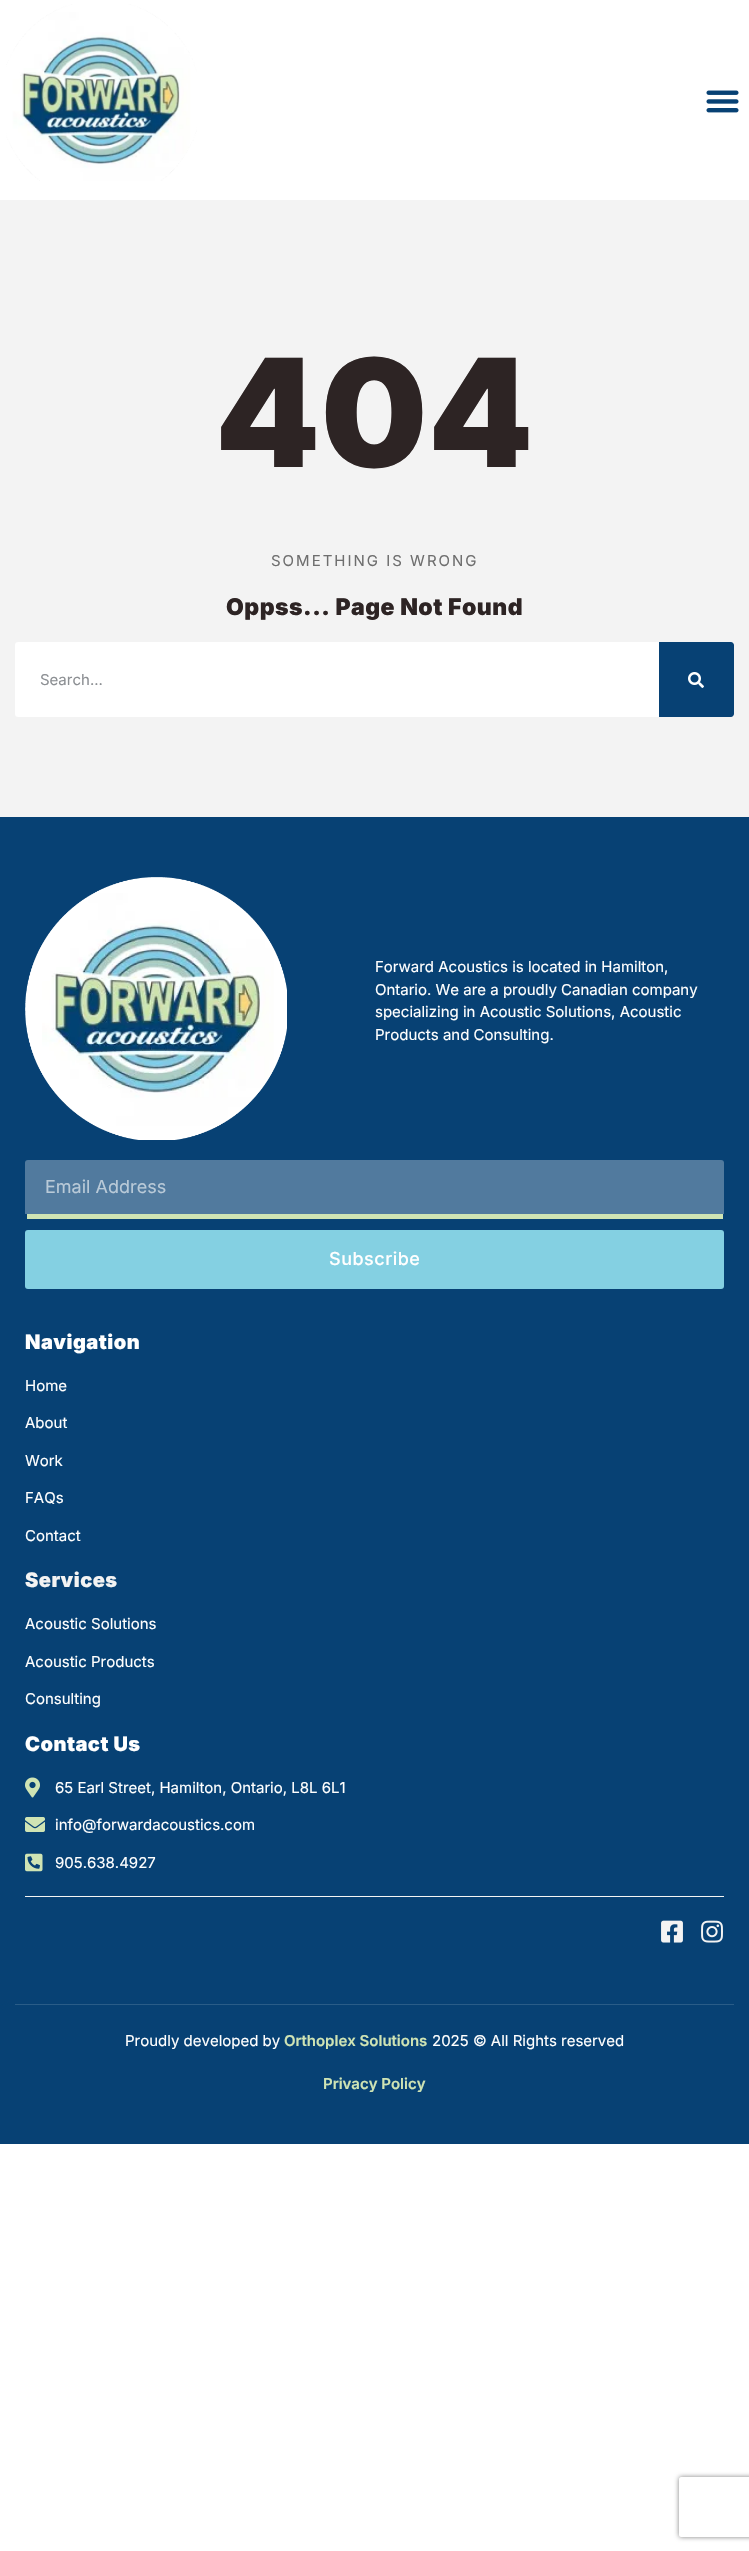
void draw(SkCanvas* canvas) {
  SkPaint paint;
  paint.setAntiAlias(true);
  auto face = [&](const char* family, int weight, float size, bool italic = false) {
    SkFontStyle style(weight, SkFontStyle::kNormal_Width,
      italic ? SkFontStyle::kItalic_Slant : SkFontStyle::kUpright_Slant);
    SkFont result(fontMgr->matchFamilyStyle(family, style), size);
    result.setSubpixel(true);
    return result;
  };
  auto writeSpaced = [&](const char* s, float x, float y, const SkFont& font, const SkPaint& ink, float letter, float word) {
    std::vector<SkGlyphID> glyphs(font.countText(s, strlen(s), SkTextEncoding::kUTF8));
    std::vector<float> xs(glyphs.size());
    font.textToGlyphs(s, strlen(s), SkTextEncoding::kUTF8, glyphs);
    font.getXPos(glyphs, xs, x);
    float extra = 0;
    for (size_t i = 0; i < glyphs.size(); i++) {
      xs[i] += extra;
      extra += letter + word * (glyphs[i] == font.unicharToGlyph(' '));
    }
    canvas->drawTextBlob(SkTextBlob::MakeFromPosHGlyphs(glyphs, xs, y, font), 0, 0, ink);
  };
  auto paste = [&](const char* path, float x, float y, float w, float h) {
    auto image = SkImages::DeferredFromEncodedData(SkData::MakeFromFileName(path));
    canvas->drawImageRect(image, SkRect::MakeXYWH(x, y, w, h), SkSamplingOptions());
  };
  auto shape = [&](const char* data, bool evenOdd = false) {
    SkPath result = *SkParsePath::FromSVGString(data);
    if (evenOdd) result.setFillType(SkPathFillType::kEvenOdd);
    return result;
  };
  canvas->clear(0xffffffff);
  paste("img/1.png", 6, 4, 191, 177);
  paste("img/2.png", 706, 90, 33, 23);
  paint.setColor(0xfff3f3f3);
  canvas->drawRect(SkRect::MakeXYWH(0, 200, 749, 617), paint);
  paint.setColor(0xffffffff);
  canvas->drawRoundRect(SkRect::MakeXYWH(15, 642, 719, 75), 3, 3, paint);
  paint.setColor(0xff074174);
  canvas->drawPath(shape("M659 642H731C732.5 642 734 643.5 734 645V714C734 715.5 732.5 717 731 717H659Z"), paint);
  paste("img/3.png", 688, 672, 16, 16);
  canvas->drawRect(SkRect::MakeXYWH(0, 817, 749, 1327), paint);
  paste("img/4.png", 25, 877, 262, 263);
  paint.setColor(0xff517a9e);
  canvas->drawPath(shape("M28 1160H721C723 1160 724 1161 724 1163V1214H25V1163C25 1161 26 1160 28 1160Z"), paint);
  paint.setColor(0xffcfe4b4);
  canvas->drawRect(SkRect::MakeXYWH(27, 1214, 696, 5), paint);
  paint.setColor(0xff84d0e2);
  canvas->drawRoundRect(SkRect::MakeXYWH(25, 1230, 699, 59), 3, 3, paint);
  canvas->save();
  canvas->clipPath(shape("M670 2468H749V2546H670ZM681 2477H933C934 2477 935 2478 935 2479V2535C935 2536 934 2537 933 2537H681C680 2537 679 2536 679 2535V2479C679 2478 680 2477 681 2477Z", true), true);
  paint.setColor(0xff808080);
  paint.setMaskFilter(SkMaskFilter::MakeBlur(kNormal_SkBlurStyle, 2.5f));
  canvas->drawRoundRect(SkRect::MakeXYWH(679, 2477, 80, 60), 2, 2, paint);
  paint.setMaskFilter(nullptr);
  canvas->restore();
  paste("img/5.png", 25, 1777, 15, 21);
  paste("img/6.png", 25, 1817, 20, 15);
  paste("img/7.png", 25, 1853, 18, 19);
  paint.setColor(0xfff3f3f3);
  canvas->drawRect(SkRect::MakeXYWH(25, 1896, 699, 1), paint);
  paste("img/8.png", 661, 1920, 22, 23);
  paste("img/9.png", 701, 1920, 22, 23);
  paint.setColor(0xff2a5c87);
  canvas->drawRect(SkRect::MakeXYWH(15, 2004, 719, 1), paint);
  auto f0 = face("Inter", 900, 150);
  paint.setColor(0xff2d2424);
  writeSpaced("404", 215, 467, f0, paint, 0.5f, 0);
  auto f1 = face("Inter", 400, 15);
  paint.setColor(0xff6e6e6e);
  writeSpaced("SOMETHING IS WRONG", 271, 566, f1, paint, 2, 0);
  auto f2 = face("Inter", 900, 23);
  paint.setColor(0xff2d2424);
  writeSpaced("Oppss... Page Not Found", 226, 615, f2, paint, 0.5f, 0);
  paint.setColor(0xff8c8f93);
  canvas->drawString("Search...", 40, 685, f1, paint);
  paint.setColor(0xffffffff);
  {
    const struct { const char* s; float x, y; } items[] = {
      {"Forward Acoustics is located in Hamilton,", 375, 972},
      {"Ontario. We are a proudly Canadian company", 375, 995},
      {"specializing in Acoustic Solutions, Acoustic", 375, 1017},
      {"Products and Consulting.", 375, 1040},
    };
    for (auto [s, x, y] : items) {
      canvas->drawString(s, x, y, f1, paint);
    }
  }
  auto f3 = face("Inter", 400, 18);
  paint.setColor(0xffb9cad8);
  canvas->drawString("Email Address", 45, 1193, f3, paint);
  auto f4 = face("Inter", 500, 18);
  paint.setColor(0xffffffff);
  writeSpaced("Subscribe", 329, 1265, f4, paint, 0.5f, 0);
  auto f5 = face("Inter", 900, 20);
  writeSpaced("Navigation", 25, 1349, f5, paint, 0.5f, 0);
  {
    const struct { const char* s; float x, y; } items[] = {
      {"Home", 25, 1391},
      {"About", 25, 1428},
      {"Work", 25, 1466},
      {"FAQs", 25, 1503},
      {"Contact", 25, 1541},
    };
    for (auto [s, x, y] : items) {
      canvas->drawString(s, x, y, f1, paint);
    }
  }
  paint.setColor(0xfff3f3f3);
  writeSpaced("Services", 25, 1587, f5, paint, 0.5f, 0);
  paint.setColor(0xffffffff);
  {
    const struct { const char* s; float x, y; } items[] = {
      {"Acoustic Solutions", 25, 1629},
      {"Acoustic Products", 25, 1667},
      {"Consulting", 25, 1704},
    };
    for (auto [s, x, y] : items) {
      canvas->drawString(s, x, y, f1, paint);
    }
  }
  writeSpaced("Contact Us", 25, 1751, f5, paint, 0.5f, 0);
  {
    const struct { const char* s; float x, y; } items[] = {
      {"65 Earl Street, Hamilton, Ontario, L8L 6L1", 55, 1793},
      {"info@forwardacoustics.com", 55, 1830},
      {"905.638.4927", 55, 1868},
      {"Proudly developed by", 125, 2046},
    };
    for (auto [s, x, y] : items) {
      canvas->drawString(s, x, y, f1, paint);
    }
  }
  auto f6 = face("Inter", 600, 15);
  paint.setColor(0xffcfe4b4);
  canvas->drawString("Orthoplex Solutions", 284, 2046, f6, paint);
  paint.setColor(0xffffffff);
  canvas->drawString("2025 © All Rights reserved", 432, 2046, f1, paint);
  paint.setColor(0xffcfe4b4);
  canvas->drawString("Privacy Policy", 323, 2089, f6, paint);
}
